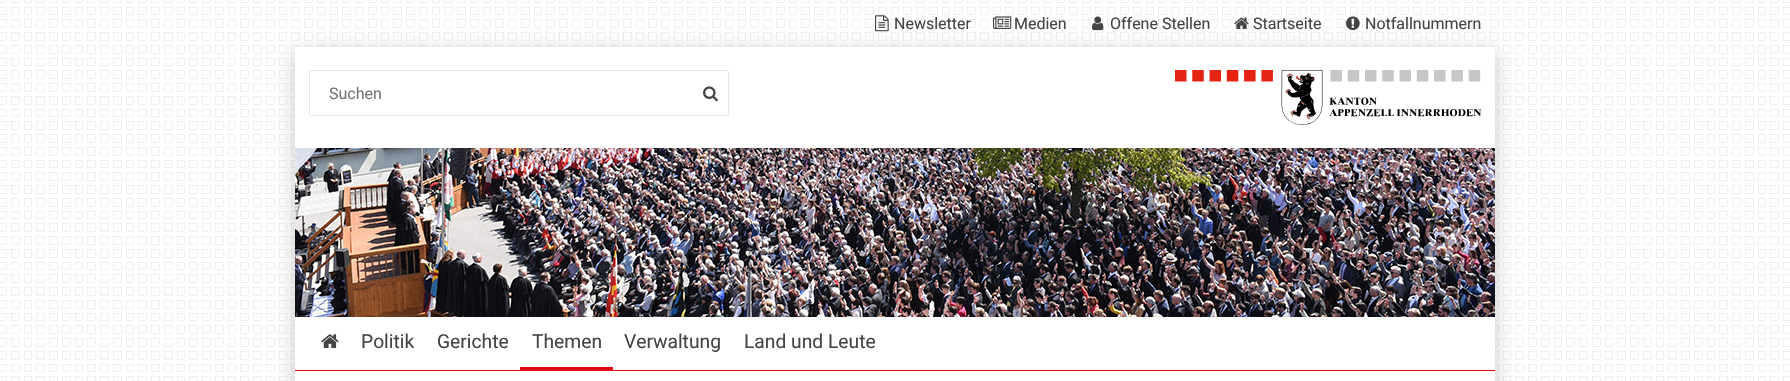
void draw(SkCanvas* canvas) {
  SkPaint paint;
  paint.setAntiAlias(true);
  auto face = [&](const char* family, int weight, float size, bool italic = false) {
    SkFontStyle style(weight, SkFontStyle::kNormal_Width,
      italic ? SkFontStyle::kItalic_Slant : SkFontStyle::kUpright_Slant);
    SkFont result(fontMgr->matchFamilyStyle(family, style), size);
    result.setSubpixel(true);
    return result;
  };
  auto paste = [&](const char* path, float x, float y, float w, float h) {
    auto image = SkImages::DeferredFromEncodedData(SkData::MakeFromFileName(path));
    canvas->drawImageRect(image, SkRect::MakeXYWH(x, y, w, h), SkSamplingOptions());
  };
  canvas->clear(0xffffffff);
  paste("img/1.png", 0, 0, 1790, 381);
  paste("img/2.png", 875, 15, 14, 17);
  paste("img/3.png", 993, 16, 19, 13);
  paste("img/4.png", 1092, 16, 12, 15);
  paste("img/5.png", 1234, 17, 15, 12);
  paste("img/6.png", 1346, 16, 14, 15);
  paint.setColor(0x33000000);
  paint.setMaskFilter(SkMaskFilter::MakeBlur(kNormal_SkBlurStyle, 10));
  canvas->drawRoundRect(SkRect::MakeXYWH(295, 52, 1200, 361), 2, 2, paint);
  paint.setMaskFilter(nullptr);
  paint.setColor(0xffffffff);
  canvas->drawRoundRect(SkRect::MakeXYWH(295, 47, 1200, 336), 2, 2, paint);
  paint.setStroke(true);
  paint.setStrokeWidth(1);
  paint.setColor(0xffe6e6e6);
  canvas->drawRoundRect(SkRect::MakeXYWH(309.5f, 70.5f, 419, 45), 1.5f, 1.5f, paint);
  paste("img/7.png", 703, 86, 15, 16);
  paste("img/8.png", 1175, 70, 306, 55);
  paint.setStroke(false);
  paint.setColor(0xffe30513);
  canvas->drawRect(SkRect::MakeXYWH(295, 370, 1200, 1), paint);
  paste("img/9.png", 295, 148, 1200, 169);
  paste("img/10.png", 321, 334, 18, 14);
  canvas->drawRect(SkRect::MakeXYWH(520, 367, 93, 3), paint);
  auto f0 = face("Roboto", 400, 16);
  paint.setColor(0xff444444);
  {
    const struct { const char* s; float x, y; } items[] = {
      {"Newsletter", 894, 29},
      {"Medien", 1014, 29},
      {"Offene Stellen", 1110, 29},
      {"Startseite", 1253, 29},
      {"Notfallnummern", 1365, 29},
    };
    for (auto [s, x, y] : items) {
      canvas->drawString(s, x, y, f0, paint);
    }
  }
  paint.setColor(0xff757575);
  canvas->drawString("Suchen", 329, 99, f0, paint);
  auto f1 = face("Roboto", 400, 19.25f);
  paint.setColor(0xff444444);
  {
    const struct { const char* s; float x, y; } items[] = {
      {"Politik", 361, 348},
      {"Gerichte", 437, 348},
      {"Themen", 532, 348},
      {"Verwaltung", 624, 348},
      {"Land und Leute", 744, 348},
    };
    for (auto [s, x, y] : items) {
      canvas->drawString(s, x, y, f1, paint);
    }
  }
}
